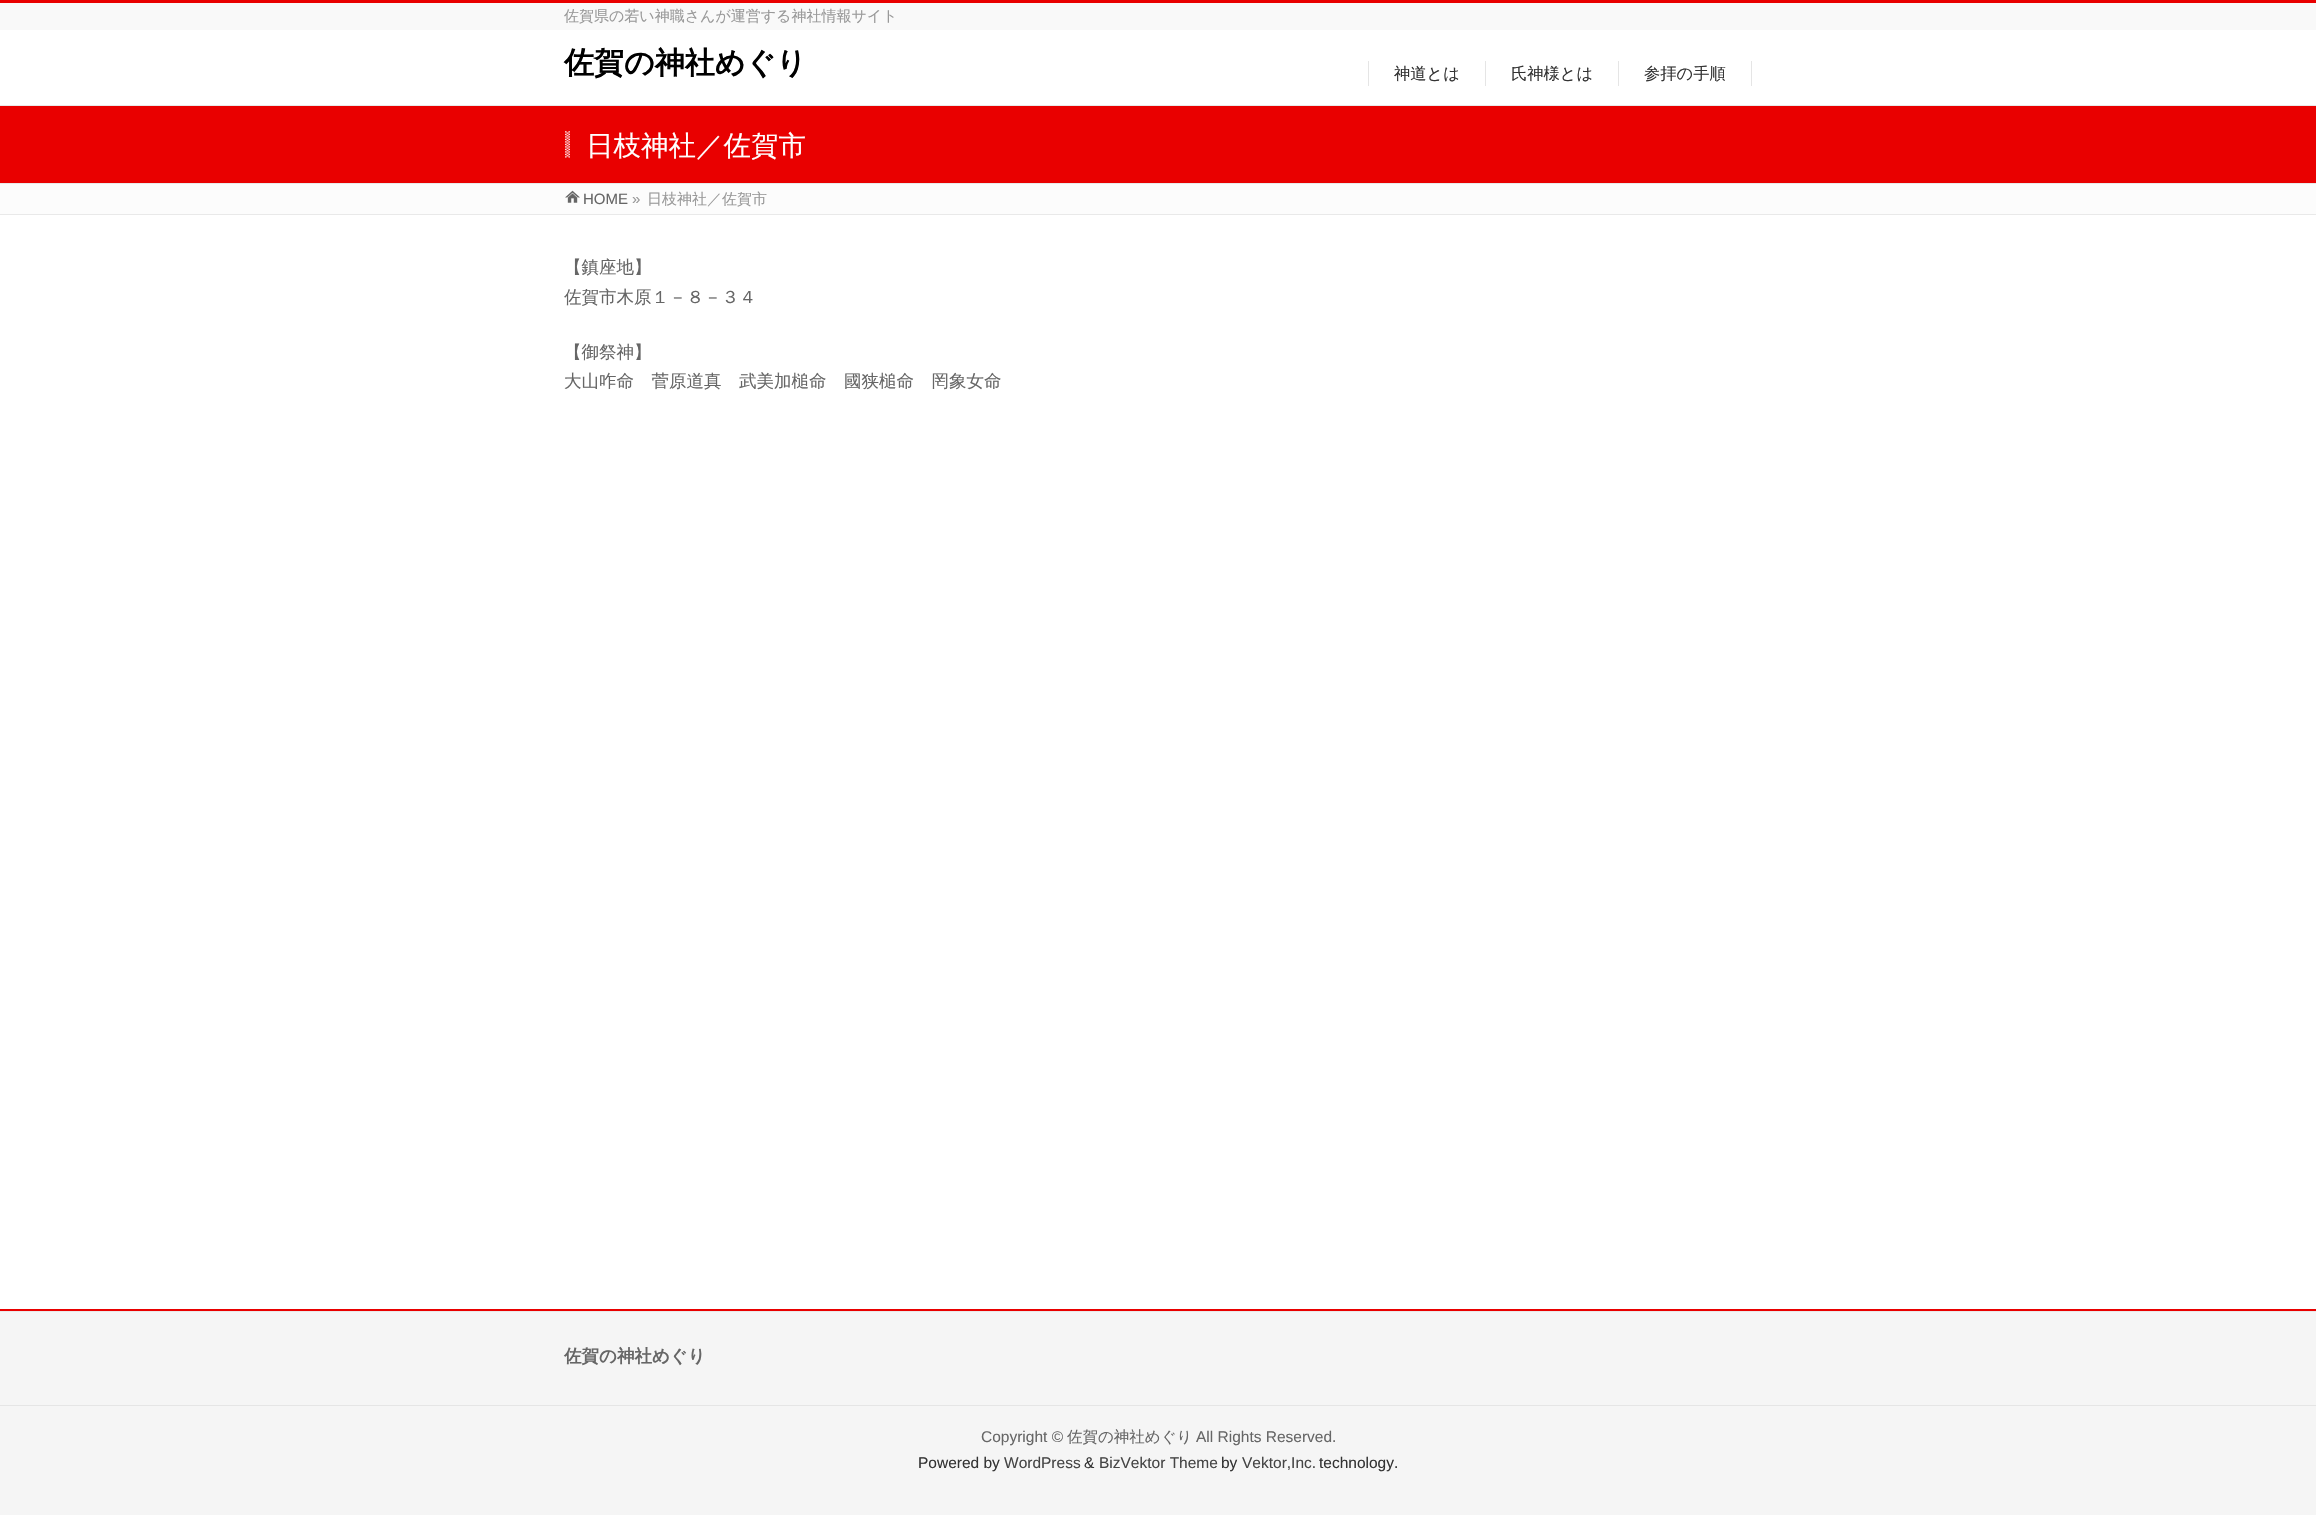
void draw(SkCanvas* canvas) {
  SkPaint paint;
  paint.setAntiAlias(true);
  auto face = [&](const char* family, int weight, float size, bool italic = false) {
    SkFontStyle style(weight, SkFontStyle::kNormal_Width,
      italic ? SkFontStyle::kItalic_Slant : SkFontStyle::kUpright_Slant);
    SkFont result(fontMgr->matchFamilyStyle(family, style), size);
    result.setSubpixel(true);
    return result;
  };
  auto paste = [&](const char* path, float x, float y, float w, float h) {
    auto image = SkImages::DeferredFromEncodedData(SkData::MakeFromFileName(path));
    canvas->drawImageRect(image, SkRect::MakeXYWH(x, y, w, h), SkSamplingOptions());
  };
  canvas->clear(0xffffffff);
  {
    const struct { float x, y, w, h; SkColor color; } items[] = {
      {0, 3, 2316, 27, 0xfff9f9f9},
      {0, 0, 2316, 3, 0xffe90000},
      {1485, 61, 1, 25, 0xffe5e5e5},
      {1368, 61, 1, 25, 0xffe5e5e5},
      {1618, 61, 1, 25, 0xffe5e5e5},
      {1751, 61, 1, 25, 0xffe5e5e5},
      {0, 106, 2316, 77, 0xffe90000},
      {0, 105, 2316, 1, 0xffe9e9e9},
      {0, 183, 2316, 1, 0xffe9e9e9},
    };
    for (auto [x, y, w, h, color] : items) {
      paint.setColor(color);
      canvas->drawRect(SkRect::MakeXYWH(x, y, w, h), paint);
    }
  }
  paste("img/1.png", 565, 131, 5, 27);
  paint.setColor(0xfffcfcfc);
  canvas->drawRect(SkRect::MakeXYWH(0, 184, 2316, 30), paint);
  paste("img/2.png", 565, 190, 15, 13);
  {
    const struct { float x, y, w, h; SkColor color; } items[] = {
      {0, 214, 2316, 1, 0xffe9e9e9},
      {0, 1309, 2316, 2, 0xffe90000},
      {0, 1311, 2316, 1, 0xffe9e9e9},
      {0, 1312, 2316, 93, 0xfff5f5f5},
      {0, 1406, 2316, 109, 0xfff5f5f5},
      {0, 1405, 2316, 1, 0xffe5e5e5},
    };
    for (auto [x, y, w, h, color] : items) {
      paint.setColor(color);
      canvas->drawRect(SkRect::MakeXYWH(x, y, w, h), paint);
    }
  }
  auto f0 = face("WenQuanYi Zen Hei", 500, 15);
  paint.setColor(0xff999999);
  canvas->drawString("佐賀県の若い神職さんが運営する神社情報サイト", 564, 21, f0, paint);
  auto f1 = face("WenQuanYi Zen Hei", 700, 30);
  paint.setColor(0xff000000);
  canvas->drawString("佐賀の神社めぐり", 564, 73, f1, paint);
  auto f2 = face("WenQuanYi Zen Hei", 500, 16.25f);
  paint.setColor(0xff333333);
  {
    const struct { const char* s; float x, y; } items[] = {
      {"神道とは", 1394, 79},
      {"氏神様とは", 1511, 79},
      {"参拝の手順", 1644, 79},
    };
    for (auto [s, x, y] : items) {
      canvas->drawString(s, x, y, f2, paint);
    }
  }
  auto f3 = face("WenQuanYi Zen Hei", 500, 27.5f);
  paint.setColor(0xffffffff);
  canvas->drawString("日枝神社／佐賀市", 586, 155, f3, paint);
  auto f4 = face("Liberation Sans", 400, 15);
  paint.setColor(0xff666666);
  canvas->drawString("HOME", 583, 204, f4, paint);
  paint.setColor(0xff999999);
  canvas->drawString("»", 632, 204, f4, paint);
  canvas->drawString("日枝神社／佐賀市", 647, 204, f0, paint);
  auto f5 = face("WenQuanYi Zen Hei", 500, 17.5f);
  paint.setColor(0xff666666);
  {
    const struct { const char* s; float x, y; } items[] = {
      {"【鎮座地】", 564, 273},
      {"佐賀市木原１－８－３４", 564, 303},
      {"【御祭神】", 564, 358},
      {"大山咋命　菅原道真　武美加槌命　國狭槌命　罔象女命", 564, 387},
    };
    for (auto [s, x, y] : items) {
      canvas->drawString(s, x, y, f5, paint);
    }
  }
  auto f6 = face("WenQuanYi Zen Hei", 700, 17.5f);
  canvas->drawString("佐賀の神社めぐり", 564, 1362, f6, paint);
  auto f7 = face("Liberation Sans", 400, 15.5f);
  canvas->drawString("Copyright ©", 981, 1442, f7, paint);
  auto f8 = face("WenQuanYi Zen Hei", 500, 15.5f);
  canvas->drawString("佐賀の神社めぐり", 1067, 1442, f8, paint);
  canvas->drawString("All Rights Reserved.", 1196, 1442, f7, paint);
  paint.setColor(0xff333333);
  canvas->drawString("Powered by", 918, 1468, f7, paint);
  paint.setColor(0xff454545);
  canvas->drawString("WordPress", 1004, 1468, f7, paint);
  paint.setColor(0xff333333);
  canvas->drawString("&", 1084, 1468, f7, paint);
  paint.setColor(0xff454545);
  canvas->drawString("BizVektor Theme", 1099, 1468, f7, paint);
  paint.setColor(0xff333333);
  canvas->drawString("by", 1221, 1468, f7, paint);
  paint.setColor(0xff454545);
  canvas->drawString("Vektor,Inc.", 1242, 1468, f7, paint);
  paint.setColor(0xff333333);
  canvas->drawString("technology.", 1319, 1468, f7, paint);
}
